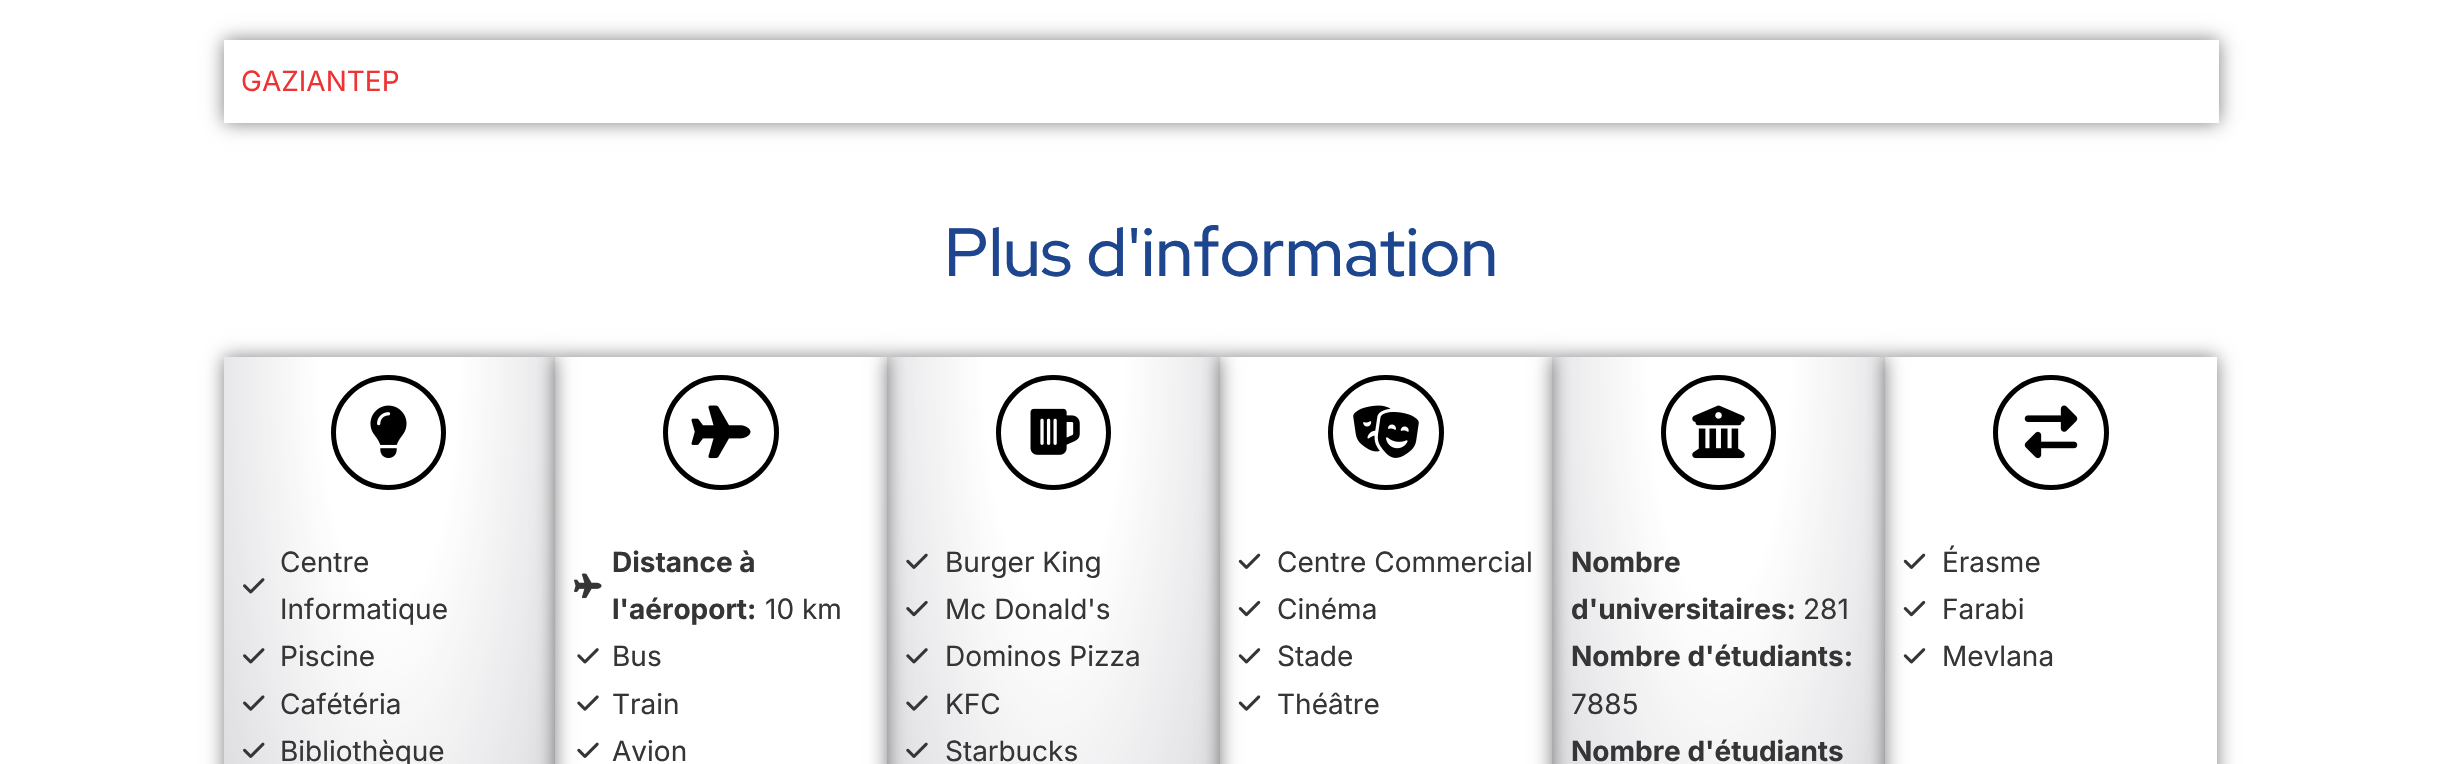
void draw(SkCanvas* canvas) {
  SkPaint paint;
  paint.setAntiAlias(true);
  auto face = [&](const char* family, int weight, float size, bool italic = false) {
    SkFontStyle style(weight, SkFontStyle::kNormal_Width,
      italic ? SkFontStyle::kItalic_Slant : SkFontStyle::kUpright_Slant);
    SkFont result(fontMgr->matchFamilyStyle(family, style), size);
    result.setSubpixel(true);
    return result;
  };
  auto paste = [&](const char* path, float x, float y, float w, float h) {
    auto image = SkImages::DeferredFromEncodedData(SkData::MakeFromFileName(path));
    canvas->drawImageRect(image, SkRect::MakeXYWH(x, y, w, h), SkSamplingOptions());
  };
  auto shape = [&](const char* data, bool evenOdd = false) {
    SkPath result = *SkParsePath::FromSVGString(data);
    if (evenOdd) result.setFillType(SkPathFillType::kEvenOdd);
    return result;
  };
  canvas->clear(0xffffffff);
  canvas->save();
  canvas->clipPath(shape("M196 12H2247V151H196ZM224 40H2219V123H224Z", true), true);
  paint.setColor(0x80000000);
  paint.setMaskFilter(SkMaskFilter::MakeBlur(kNormal_SkBlurStyle, 9));
  canvas->drawRect(SkRect::MakeXYWH(224, 40, 1995, 83), paint);
  paint.setMaskFilter(nullptr);
  canvas->restore();
  canvas->save();
  canvas->clipPath(shape("M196 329H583V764H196ZM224 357H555V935H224Z", true), true);
  paint.setMaskFilter(SkMaskFilter::MakeBlur(kNormal_SkBlurStyle, 9));
  canvas->drawRect(SkRect::MakeXYWH(224, 357, 331, 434), paint);
  paint.setMaskFilter(nullptr);
  canvas->restore();
  {
    const SkColor colors[] = {0x0029283d, 0x3029283d};
    const float stops[] = {0.3f, 1};
    SkMatrix m = SkMatrix::Translate(389, 357).preScale(234, 817);
    paint.setShader(SkGradientShader::MakeRadial({0, 0}, 1, colors, stops, 2, SkTileMode::kClamp, 0, &m));
    paint.setAlpha(255);
  }
  canvas->drawRect(SkRect::MakeXYWH(224, 357, 331, 407), paint);
  paint.setStroke(true);
  paint.setStrokeWidth(5);
  paint.setShader(nullptr);
  paint.setColor(0xff000000);
  canvas->drawCircle(388.5f, 432.5f, 55, paint);
  paste("img/1.png", 370, 405, 37, 54);
  paste("img/2.png", 243, 578, 22, 16);
  paste("img/3.png", 243, 648, 22, 16);
  paste("img/4.png", 243, 695, 22, 16);
  paste("img/5.png", 243, 742, 22, 16);
  canvas->save();
  canvas->clipPath(shape("M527 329H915V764H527ZM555 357H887V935H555Z", true), true);
  paint.setStroke(false);
  paint.setColor(0x80000000);
  paint.setMaskFilter(SkMaskFilter::MakeBlur(kNormal_SkBlurStyle, 9));
  canvas->drawRect(SkRect::MakeXYWH(555, 357, 332, 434), paint);
  paint.setMaskFilter(nullptr);
  canvas->restore();
  paint.setStroke(true);
  paint.setColor(0xff000000);
  canvas->drawRoundRect(SkRect::MakeXYWH(665.5f, 377.5f, 111, 110), 55, 55, paint);
  paste("img/6.png", 691, 405, 60, 54);
  paste("img/7.png", 574, 573, 28, 26);
  paste("img/8.png", 577, 648, 22, 16);
  paste("img/9.png", 577, 695, 22, 16);
  paste("img/10.png", 577, 742, 22, 16);
  canvas->save();
  canvas->clipPath(shape("M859 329H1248V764H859ZM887 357H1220V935H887Z", true), true);
  paint.setStroke(false);
  paint.setColor(0x80000000);
  paint.setMaskFilter(SkMaskFilter::MakeBlur(kNormal_SkBlurStyle, 9));
  canvas->drawRect(SkRect::MakeXYWH(887, 357, 333, 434), paint);
  paint.setMaskFilter(nullptr);
  canvas->restore();
  {
    const SkColor colors[] = {0x0029283d, 0x3029283d};
    const float stops[] = {0.3f, 1};
    SkMatrix m = SkMatrix::Translate(1054, 357).preScale(235, 817);
    paint.setShader(SkGradientShader::MakeRadial({0, 0}, 1, colors, stops, 2, SkTileMode::kClamp, 0, &m));
    paint.setAlpha(255);
  }
  canvas->drawRect(SkRect::MakeXYWH(887, 357, 333, 407), paint);
  paint.setStroke(true);
  paint.setShader(nullptr);
  paint.setColor(0xff000000);
  canvas->drawCircle(1053.5f, 432.5f, 55, paint);
  paste("img/11.png", 1030, 408, 50, 47);
  paste("img/12.png", 906, 553, 22, 16);
  paste("img/13.png", 906, 600, 22, 17);
  paste("img/14.png", 906, 648, 22, 16);
  paste("img/15.png", 906, 695, 22, 16);
  paste("img/16.png", 906, 742, 22, 16);
  canvas->save();
  canvas->clipPath(shape("M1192 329H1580V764H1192ZM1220 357H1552V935H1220Z", true), true);
  paint.setStroke(false);
  paint.setColor(0x80000000);
  paint.setMaskFilter(SkMaskFilter::MakeBlur(kNormal_SkBlurStyle, 9));
  canvas->drawRect(SkRect::MakeXYWH(1220, 357, 332, 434), paint);
  paint.setMaskFilter(nullptr);
  canvas->restore();
  paint.setStroke(true);
  paint.setColor(0xff000000);
  canvas->drawRoundRect(SkRect::MakeXYWH(1330.5f, 377.5f, 111, 110), 55, 55, paint);
  paste("img/17.png", 1353, 405, 66, 53);
  paste("img/18.png", 1238, 553, 23, 16);
  paste("img/19.png", 1238, 600, 23, 17);
  paste("img/20.png", 1238, 648, 23, 16);
  paste("img/21.png", 1238, 695, 23, 16);
  canvas->save();
  canvas->clipPath(shape("M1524 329H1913V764H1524ZM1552 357H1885V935H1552Z", true), true);
  paint.setStroke(false);
  paint.setColor(0x80000000);
  paint.setMaskFilter(SkMaskFilter::MakeBlur(kNormal_SkBlurStyle, 9));
  canvas->drawRect(SkRect::MakeXYWH(1552, 357, 333, 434), paint);
  paint.setMaskFilter(nullptr);
  canvas->restore();
  {
    const SkColor colors[] = {0x0029283d, 0x3029283d};
    const float stops[] = {0.3f, 1};
    SkMatrix m = SkMatrix::Translate(1719, 357).preScale(235, 817);
    paint.setShader(SkGradientShader::MakeRadial({0, 0}, 1, colors, stops, 2, SkTileMode::kClamp, 0, &m));
    paint.setAlpha(255);
  }
  canvas->drawRect(SkRect::MakeXYWH(1552, 357, 333, 407), paint);
  paint.setStroke(true);
  paint.setShader(nullptr);
  paint.setColor(0xff000000);
  canvas->drawCircle(1718.5f, 432.5f, 55, paint);
  paste("img/22.png", 1692, 405, 53, 54);
  canvas->save();
  canvas->clipPath(shape("M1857 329H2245V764H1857ZM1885 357H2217V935H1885Z", true), true);
  paint.setStroke(false);
  paint.setColor(0x80000000);
  paint.setMaskFilter(SkMaskFilter::MakeBlur(kNormal_SkBlurStyle, 9));
  canvas->drawRect(SkRect::MakeXYWH(1885, 357, 332, 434), paint);
  paint.setMaskFilter(nullptr);
  canvas->restore();
  paint.setStroke(true);
  paint.setColor(0xff000000);
  canvas->drawRoundRect(SkRect::MakeXYWH(1995.5f, 377.5f, 111, 110), 55, 55, paint);
  paste("img/23.png", 2024, 405, 54, 54);
  paste("img/18.png", 1903, 553, 23, 16);
  paste("img/19.png", 1903, 600, 23, 17);
  paste("img/20.png", 1903, 648, 23, 16);
  auto f0 = face("Inter", 400, 28);
  paint.setStroke(false);
  paint.setColor(0xffed3334);
  canvas->drawString("GAZIANTEP", 241, 91, f0, paint);
  auto f1 = face("Red Hat Display", 500, 68.25f);
  paint.setColor(0xff1d468f);
  canvas->drawString("Plus d'information", 944, 276, f1, paint);
  paint.setColor(0xff353535);
  {
    const struct { const char* s; float x, y; } items[] = {
      {"Centre", 280, 572},
      {"Informatique", 280, 619},
      {"Piscine", 280, 666},
      {"Cafétéria", 280, 714},
      {"Bibliothèque", 280, 761},
    };
    for (auto [s, x, y] : items) {
      canvas->drawString(s, x, y, f0, paint);
    }
  }
  auto f2 = face("Inter", 700, 28);
  canvas->drawString("Distance à", 612, 572, f2, paint);
  canvas->drawString("l'aéroport:", 612, 619, f2, paint);
  {
    const struct { const char* s; float x, y; } items[] = {
      {"10 km", 765, 619},
      {"Bus", 612, 666},
      {"Train", 612, 714},
      {"Avion", 612, 761},
      {"Burger King", 945, 572},
      {"Mc Donald's", 945, 619},
      {"Dominos Pizza", 945, 666},
      {"KFC", 945, 714},
      {"Starbucks", 945, 761},
      {"Centre Commercial", 1277, 572},
      {"Cinéma", 1277, 619},
      {"Stade", 1277, 666},
      {"Théâtre", 1277, 714},
    };
    for (auto [s, x, y] : items) {
      canvas->drawString(s, x, y, f0, paint);
    }
  }
  canvas->drawString("Nombre", 1571, 572, f2, paint);
  canvas->drawString("d'universitaires:", 1571, 619, f2, paint);
  canvas->drawString("281", 1803, 619, f0, paint);
  canvas->drawString("Nombre d'étudiants:", 1571, 666, f2, paint);
  canvas->drawString("7885", 1571, 714, f0, paint);
  canvas->drawString("Nombre d'étudiants", 1571, 761, f2, paint);
  {
    const struct { const char* s; float x, y; } items[] = {
      {"Érasme", 1942, 572},
      {"Farabi", 1942, 619},
      {"Mevlana", 1942, 666},
    };
    for (auto [s, x, y] : items) {
      canvas->drawString(s, x, y, f0, paint);
    }
  }
}
